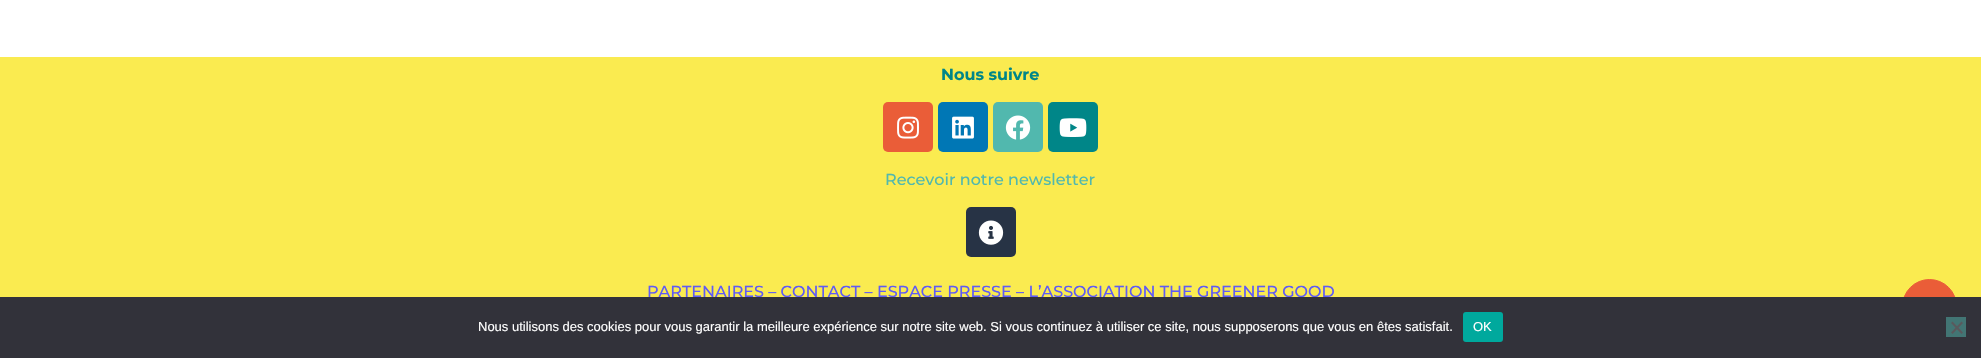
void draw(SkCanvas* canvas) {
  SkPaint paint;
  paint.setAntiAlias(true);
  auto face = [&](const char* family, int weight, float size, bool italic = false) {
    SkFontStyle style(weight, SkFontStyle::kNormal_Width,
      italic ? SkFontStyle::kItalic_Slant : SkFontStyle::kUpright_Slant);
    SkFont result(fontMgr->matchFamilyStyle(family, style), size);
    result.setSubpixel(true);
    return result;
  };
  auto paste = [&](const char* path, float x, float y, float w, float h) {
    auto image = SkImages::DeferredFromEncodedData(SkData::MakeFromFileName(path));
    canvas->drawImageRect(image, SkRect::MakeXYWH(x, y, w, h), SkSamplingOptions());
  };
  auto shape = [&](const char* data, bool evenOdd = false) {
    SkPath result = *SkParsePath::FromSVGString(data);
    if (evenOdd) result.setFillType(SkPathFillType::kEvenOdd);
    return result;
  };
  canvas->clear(0xffffffff);
  paint.setColor(0xfffaeb50);
  canvas->drawRect(SkRect::MakeXYWH(0, 57, 1981, 240), paint);
  paint.setColor(0xffea5d38);
  canvas->drawRoundRect(SkRect::MakeXYWH(883, 102, 50, 50), 5, 5, paint);
  paste("img/1.png", 897, 116, 22, 23);
  paint.setColor(0xff0077b5);
  canvas->drawRoundRect(SkRect::MakeXYWH(938, 102, 50, 50), 5, 5, paint);
  paste("img/2.png", 952, 116, 22, 23);
  paint.setColor(0xff51b8ae);
  canvas->drawRoundRect(SkRect::MakeXYWH(993, 102, 50, 50), 5, 5, paint);
  paste("img/3.png", 1005, 115, 26, 25);
  paint.setColor(0xff008688);
  canvas->drawRoundRect(SkRect::MakeXYWH(1048, 102, 50, 50), 5, 5, paint);
  paste("img/4.png", 1059, 118, 28, 19);
  paint.setColor(0xff273345);
  canvas->drawRoundRect(SkRect::MakeXYWH(966, 207, 50, 50), 5, 5, paint);
  paste("img/5.png", 978, 220, 26, 25);
  paint.setColor(0xffea5d38);
  canvas->drawCircle(1929.5f, 306.5f, 27, paint);
  paint.setStroke(true);
  paint.setStrokeWidth(1);
  canvas->drawCircle(1929.5f, 306.5f, 27, paint);
  auto f0 = face("Montserrat", 700, 16);
  paint.setStroke(false);
  paint.setColor(0xff008688);
  canvas->drawString("Nous suivre", 941, 80, f0, paint);
  auto f1 = face("Montserrat", 500, 16);
  paint.setColor(0xff51b8ae);
  canvas->drawString("Recevoir notre newsletter", 885, 185, f1, paint);
  paint.setColor(0xff5f5bf6);
  canvas->drawString("PARTENAIRES – CONTACT – ESPACE PRESSE – L’ASSOCIATION THE GREENER GOOD", 647, 297, f1, paint);
  paint.setColor(0xff32323a);
  canvas->drawRect(SkRect::MakeXYWH(0, 297, 1981, 61), paint);
  auto f2 = face("Liberation Sans", 400, 13);
  paint.setColor(0xffffffff);
  canvas->drawString("Nous utilisons des cookies pour vous garantir la meilleure expérience sur notre site web. Si vous continuez à utiliser ce site, nous supposerons que vous en êtes satisfait.", 478, 331, f2, paint);
  paint.setColor(0xff00a99d);
  canvas->drawRoundRect(SkRect::MakeXYWH(1463, 312, 40, 30), 3, 3, paint);
  paint.setColor(0xffffffff);
  canvas->drawString("OK", 1473, 331, f2, paint);
  paint.setColor(0xff427574);
  canvas->drawRect(SkRect::MakeXYWH(1946, 317, 20, 20), paint);
  paint.setColor(0xff59595d);
  canvas->drawPath(shape("M1961.5 321.5L1963 323L1952.5 334L1951 332.5Z"), paint);
  canvas->drawPath(shape("M1951 323L1952.5 321.5L1963 332.5L1961.5 334Z"), paint);
}
